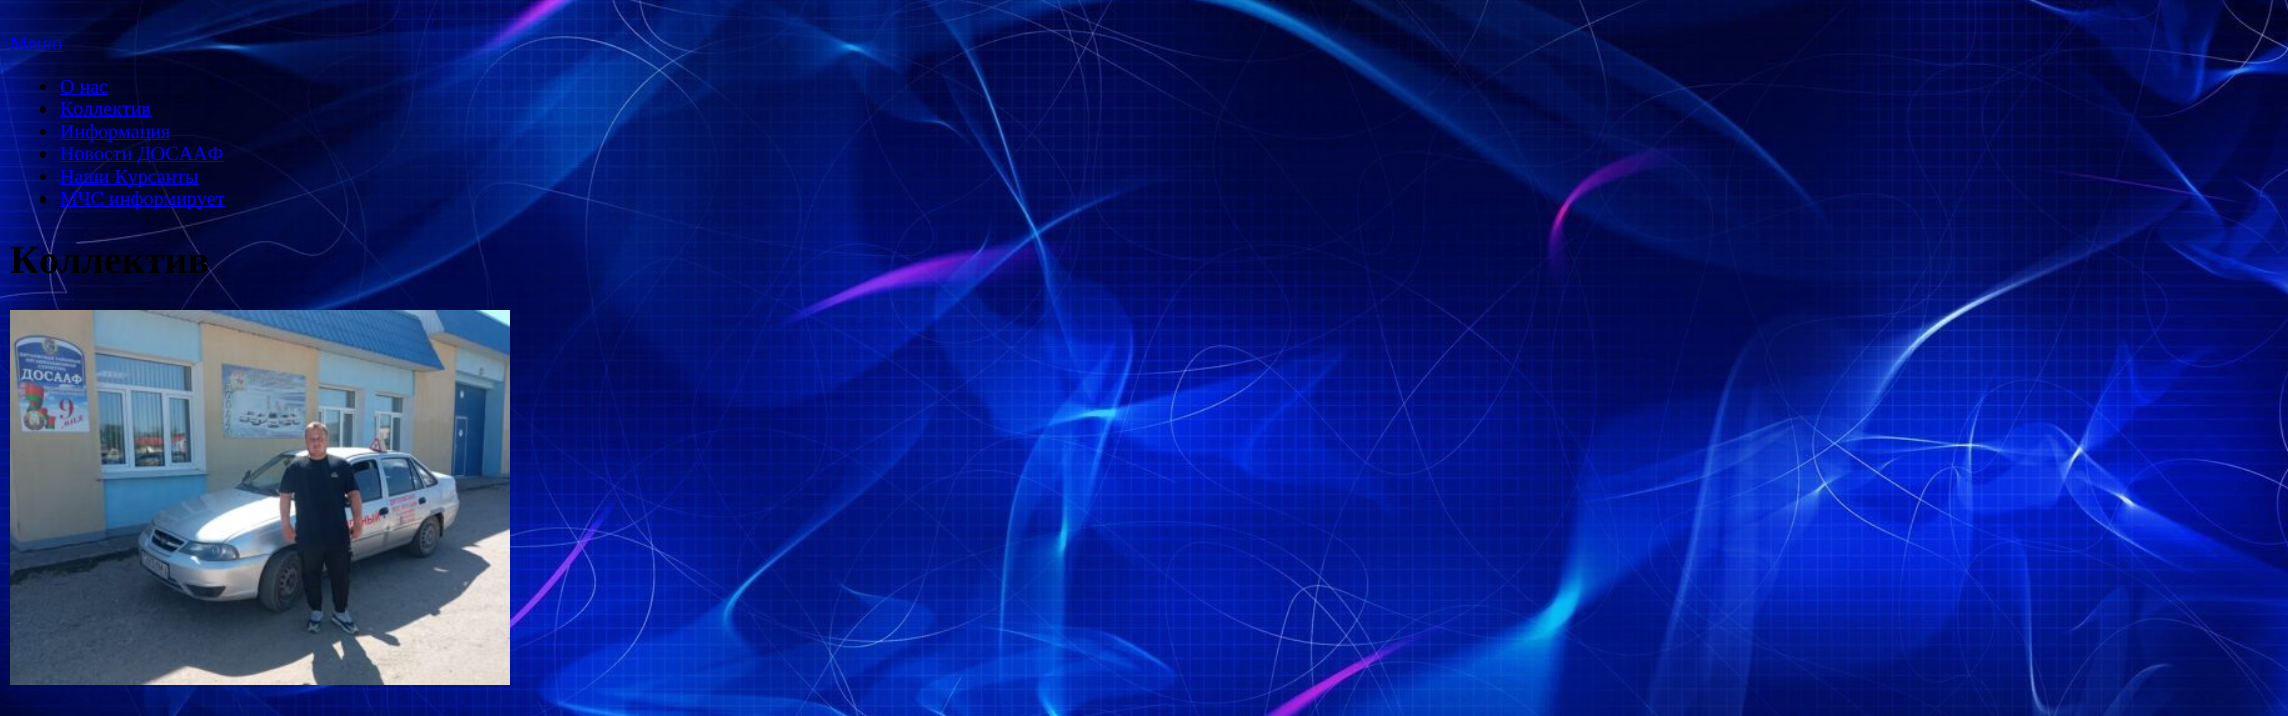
void draw(SkCanvas* canvas) {
  SkPaint paint;
  paint.setAntiAlias(true);
  auto face = [&](const char* family, int weight, float size, bool italic = false) {
    SkFontStyle style(weight, SkFontStyle::kNormal_Width,
      italic ? SkFontStyle::kItalic_Slant : SkFontStyle::kUpright_Slant);
    SkFont result(fontMgr->matchFamilyStyle(family, style), size);
    result.setSubpixel(true);
    return result;
  };
  auto paste = [&](const char* path, float x, float y, float w, float h) {
    auto image = SkImages::DeferredFromEncodedData(SkData::MakeFromFileName(path));
    canvas->drawImageRect(image, SkRect::MakeXYWH(x, y, w, h), SkSamplingOptions());
  };
  canvas->clear(0xffffffff);
  paste("img/1.png", 0, 0, 2288, 716);
  paint.setColor(0xff0000ee);
  canvas->drawRect(SkRect::MakeXYWH(10, 51, 53, 1), paint);
  paint.setColor(0xff000000);
  canvas->drawCircle(43, 87, 3, paint);
  paint.setColor(0xff0000ee);
  canvas->drawRect(SkRect::MakeXYWH(60, 94, 48, 1), paint);
  paint.setColor(0xff000000);
  canvas->drawRoundRect(SkRect::MakeXYWH(40, 106, 6, 7), 3, 3, paint);
  paint.setColor(0xff0000ee);
  canvas->drawRect(SkRect::MakeXYWH(60, 116, 91, 1), paint);
  paint.setColor(0xff000000);
  canvas->drawCircle(43, 132, 3, paint);
  paint.setColor(0xff0000ee);
  canvas->drawRect(SkRect::MakeXYWH(60, 139, 110, 1), paint);
  paint.setColor(0xff000000);
  canvas->drawRoundRect(SkRect::MakeXYWH(40, 151, 6, 7), 3, 3, paint);
  paint.setColor(0xff0000ee);
  canvas->drawRect(SkRect::MakeXYWH(60, 161, 164, 1), paint);
  paint.setColor(0xff000000);
  canvas->drawCircle(43, 177, 3, paint);
  paint.setColor(0xff0000ee);
  canvas->drawRect(SkRect::MakeXYWH(60, 184, 139, 1), paint);
  paint.setColor(0xff000000);
  canvas->drawRoundRect(SkRect::MakeXYWH(40, 196, 6, 7), 3, 3, paint);
  paint.setColor(0xff0000ee);
  canvas->drawRect(SkRect::MakeXYWH(60, 206, 165, 1), paint);
  paste("img/2.png", 10, 310, 500, 375);
  auto f0 = face("Liberation Serif", 400, 20);
  {
    const struct { const char* s; float x, y; } items[] = {
      {"Меню", 10, 50},
      {"О нас", 60, 93},
      {"Коллектив", 60, 115},
      {"Информация", 60, 138},
      {"Новости ДОСААФ", 60, 160},
      {"Наши Курсанты", 60, 183},
      {"МЧС информирует", 60, 205},
    };
    for (auto [s, x, y] : items) {
      canvas->drawString(s, x, y, f0, paint);
    }
  }
  auto f1 = face("Liberation Serif", 700, 40);
  paint.setColor(0xff000000);
  canvas->drawString("Коллектив", 10, 273, f1, paint);
}
